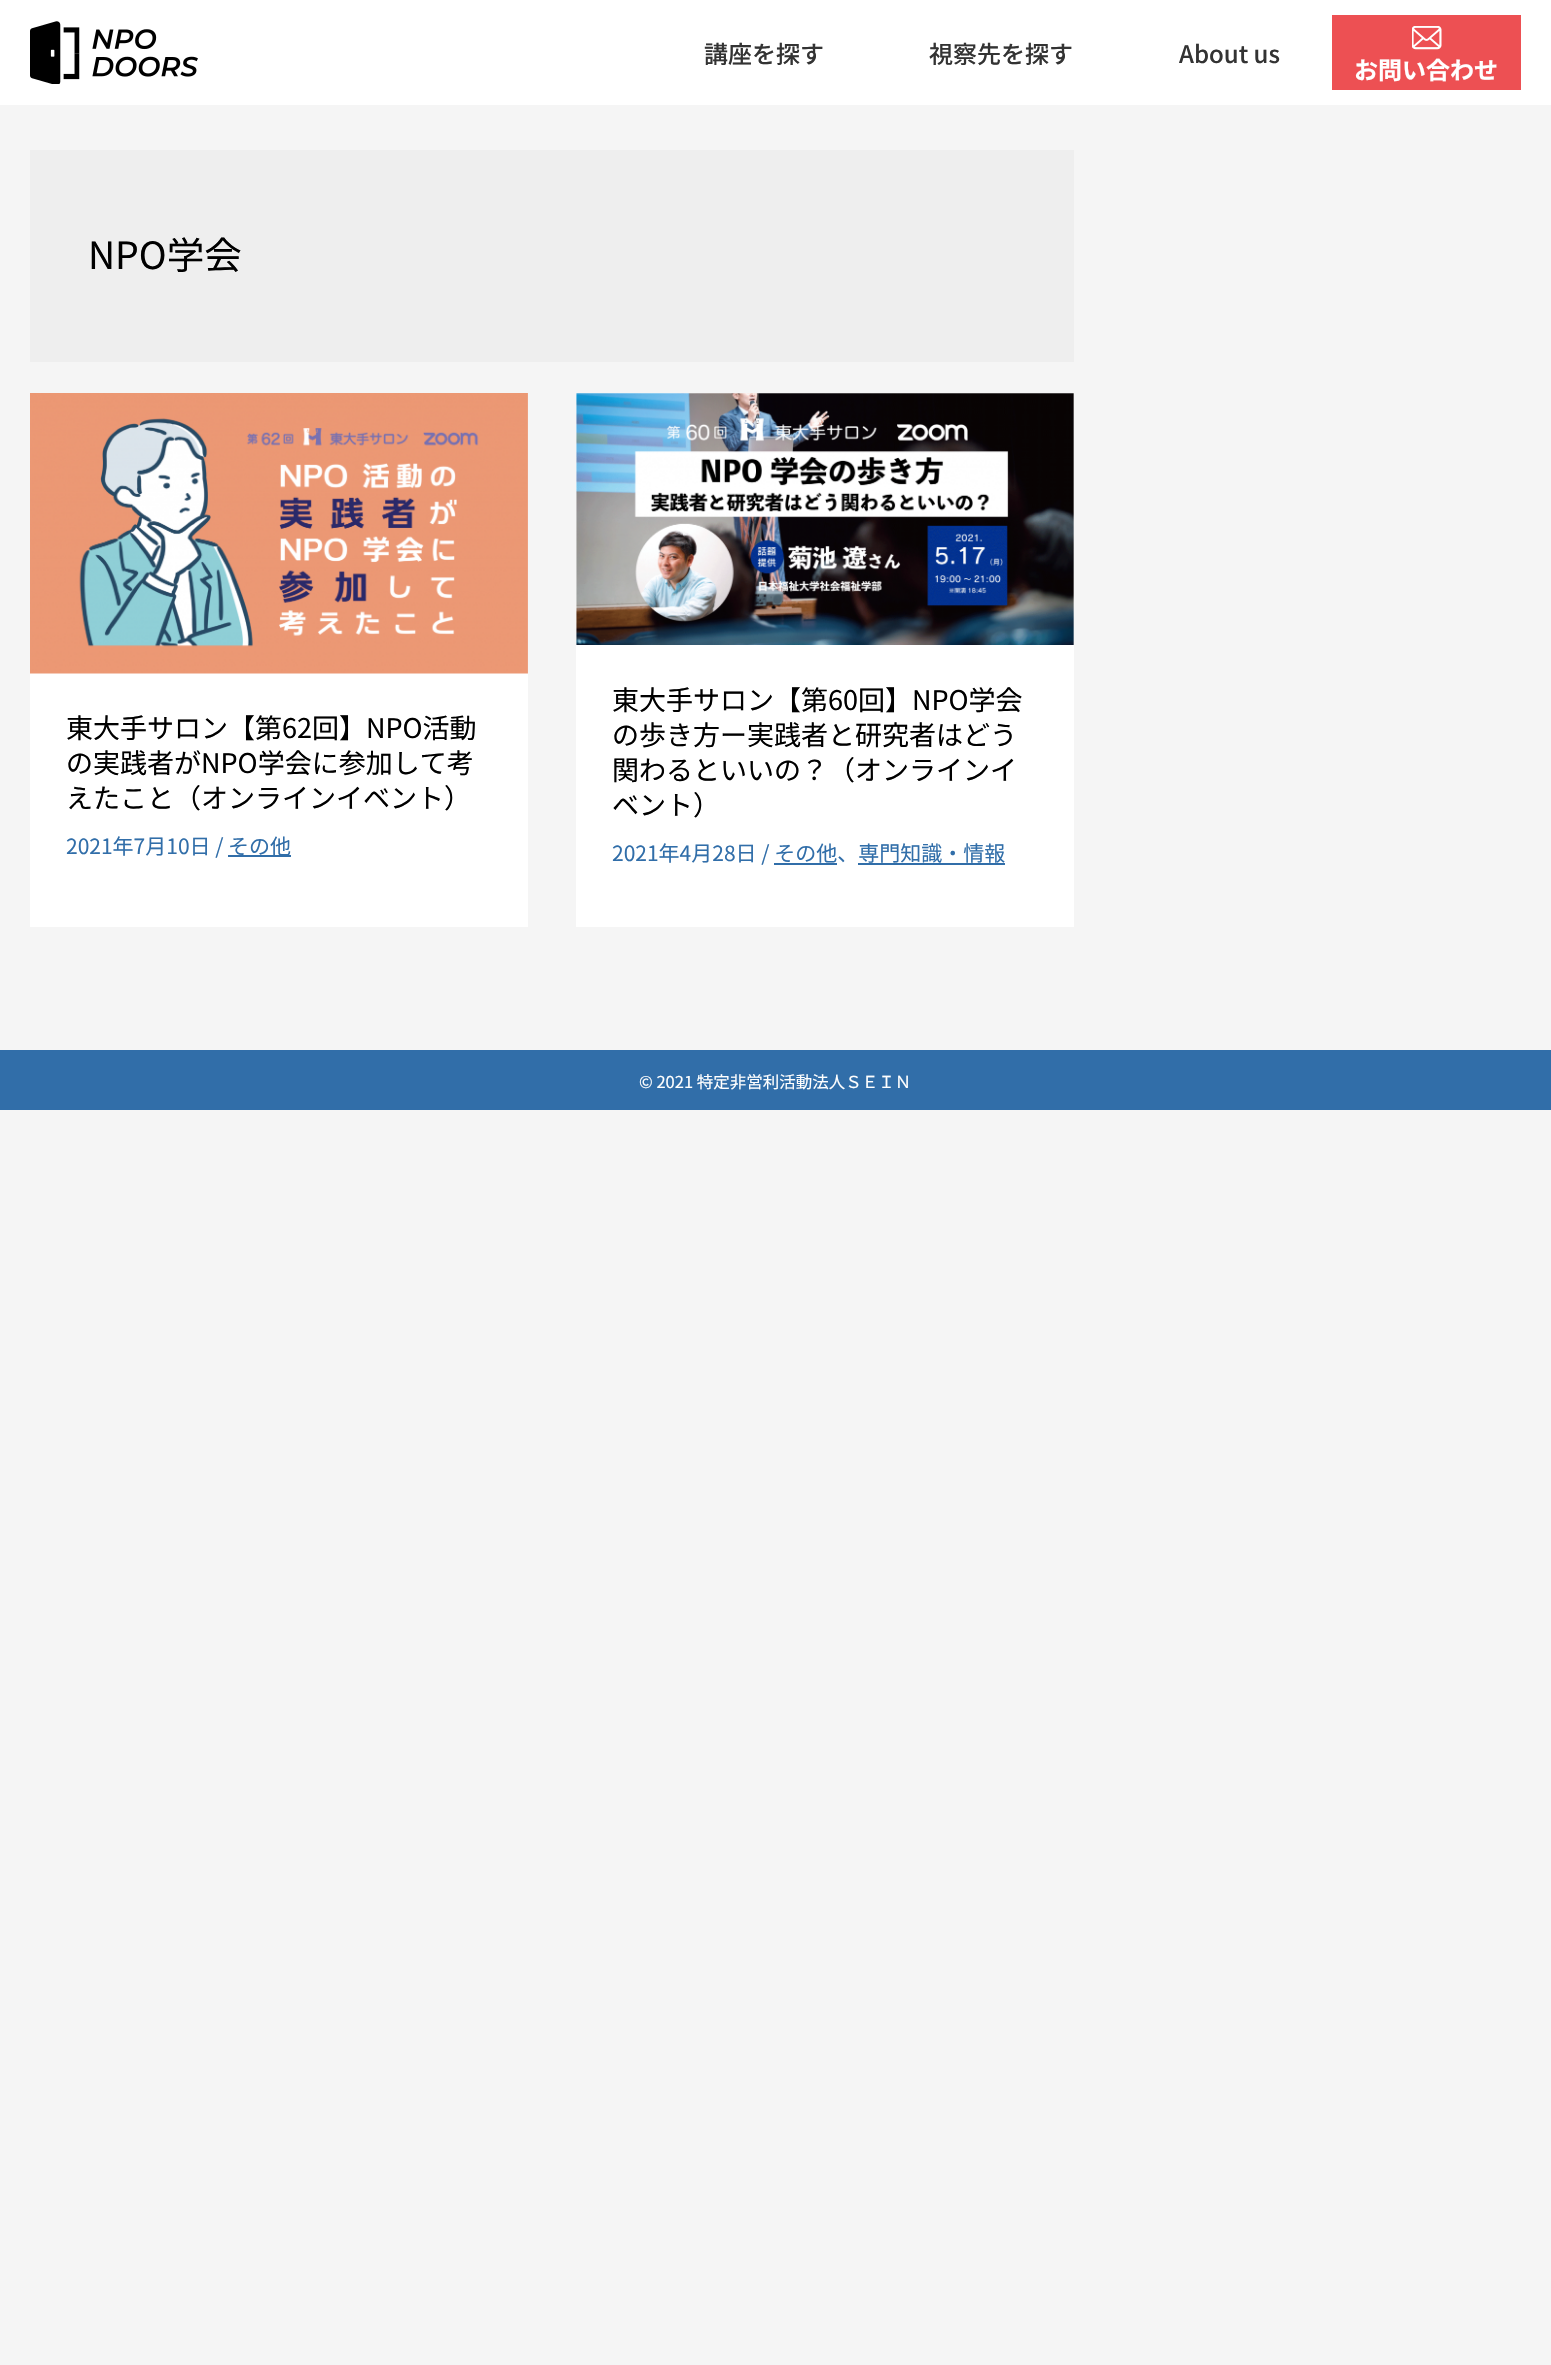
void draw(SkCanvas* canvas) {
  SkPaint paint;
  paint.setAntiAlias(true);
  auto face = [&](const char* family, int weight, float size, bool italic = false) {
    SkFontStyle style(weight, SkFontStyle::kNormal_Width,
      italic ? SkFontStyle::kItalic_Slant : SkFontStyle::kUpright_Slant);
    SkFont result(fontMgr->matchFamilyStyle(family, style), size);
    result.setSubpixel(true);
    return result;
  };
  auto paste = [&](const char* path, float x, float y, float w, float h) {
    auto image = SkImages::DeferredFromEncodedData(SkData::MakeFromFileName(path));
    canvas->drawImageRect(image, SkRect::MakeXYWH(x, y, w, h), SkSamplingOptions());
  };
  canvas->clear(0xfff5f5f5);
  paint.setColor(0xffffffff);
  canvas->drawRect(SkRect::MakeXYWH(0, 0, 1551, 105), paint);
  paste("img/1.png", 30, 21, 168, 63);
  paint.setColor(0xffed5053);
  canvas->drawRect(SkRect::MakeXYWH(1332, 15, 189, 75), paint);
  paste("img/2.png", 1412, 26, 30, 24);
  paint.setColor(0xffeeeeee);
  canvas->drawRect(SkRect::MakeXYWH(30, 150, 1044, 212), paint);
  paint.setColor(0xffffffff);
  canvas->drawRect(SkRect::MakeXYWH(30, 673, 498, 254), paint);
  paste("img/3.png", 30, 393, 498, 281);
  paint.setColor(0xff316ea9);
  canvas->drawRect(SkRect::MakeXYWH(228, 855, 63, 2), paint);
  paint.setColor(0xffffffff);
  canvas->drawRect(SkRect::MakeXYWH(576, 393, 498, 534), paint);
  paste("img/4.png", 576, 393, 498, 252);
  {
    const struct { float x, y, w, h; SkColor color; } items[] = {
      {774, 863, 63, 2, 0xff316ea9},
      {858, 863, 147, 2, 0xff316ea9},
      {0, 1050, 1551, 60, 0xff316ea9},
    };
    for (auto [x, y, w, h, color] : items) {
      paint.setColor(color);
      canvas->drawRect(SkRect::MakeXYWH(x, y, w, h), paint);
    }
  }
  auto f0 = face("Noto Sans JP", 500, 24);
  paint.setColor(0xff333333);
  {
    const struct { const char* s; float x, y; } items[] = {
      {"講座を探す", 704, 63},
      {"視察先を探す", 929, 63},
      {"About us", 1179, 63},
    };
    for (auto [s, x, y] : items) {
      canvas->drawString(s, x, y, f0, paint);
    }
  }
  auto f1 = face("Noto Sans JP", 700, 24);
  paint.setColor(0xffffffff);
  canvas->drawString("お問い合わせ", 1354, 79, f1, paint);
  auto f2 = face("Noto Sans JP", 400, 37.5f);
  paint.setColor(0xff000000);
  canvas->drawString("NPO学会", 88, 269, f2, paint);
  auto f3 = face("Noto Sans JP", 400, 27);
  {
    const struct { const char* s; float x, y; } items[] = {
      {"東大手サロン【第62回】NPO活動", 66, 738},
      {"の実践者がNPO学会に参加して考", 66, 773},
      {"えたこと（オンラインイベント）", 66, 808},
    };
    for (auto [s, x, y] : items) {
      canvas->drawString(s, x, y, f3, paint);
    }
  }
  auto f4 = face("Noto Sans JP", 400, 21);
  paint.setColor(0xff316ea9);
  canvas->drawString("2021年7月10日 /", 66, 854, f4, paint);
  canvas->drawString("その他", 228, 854, f4, paint);
  paint.setColor(0xff000000);
  {
    const struct { const char* s; float x, y; } items[] = {
      {"東大手サロン【第60回】NPO学会", 612, 710},
      {"の歩き方ー実践者と研究者はどう", 612, 745},
      {"関わるといいの？（オンラインイ", 612, 780},
      {"ベント）", 612, 815},
    };
    for (auto [s, x, y] : items) {
      canvas->drawString(s, x, y, f3, paint);
    }
  }
  paint.setColor(0xff316ea9);
  canvas->drawString("2021年4月28日 / その他、専門知識・情報", 612, 861, f4, paint);
  auto f5 = face("Noto Sans JP", 400, 16.5f);
  paint.setColor(0xffffffff);
  canvas->drawString("© 2021 特定非営利活動法人ＳＥＩＮ", 639, 1088, f5, paint);
}
